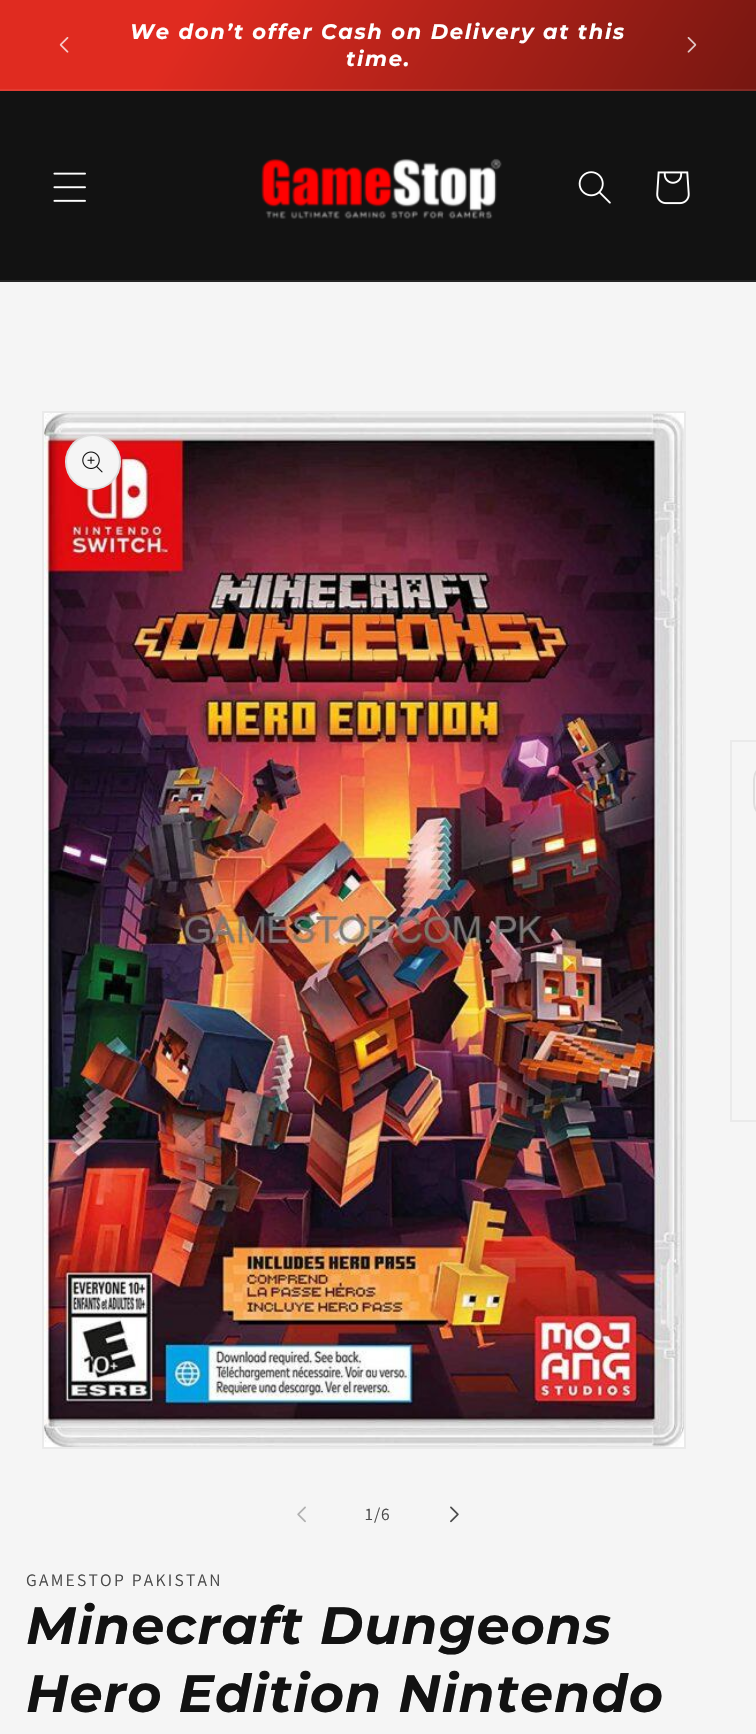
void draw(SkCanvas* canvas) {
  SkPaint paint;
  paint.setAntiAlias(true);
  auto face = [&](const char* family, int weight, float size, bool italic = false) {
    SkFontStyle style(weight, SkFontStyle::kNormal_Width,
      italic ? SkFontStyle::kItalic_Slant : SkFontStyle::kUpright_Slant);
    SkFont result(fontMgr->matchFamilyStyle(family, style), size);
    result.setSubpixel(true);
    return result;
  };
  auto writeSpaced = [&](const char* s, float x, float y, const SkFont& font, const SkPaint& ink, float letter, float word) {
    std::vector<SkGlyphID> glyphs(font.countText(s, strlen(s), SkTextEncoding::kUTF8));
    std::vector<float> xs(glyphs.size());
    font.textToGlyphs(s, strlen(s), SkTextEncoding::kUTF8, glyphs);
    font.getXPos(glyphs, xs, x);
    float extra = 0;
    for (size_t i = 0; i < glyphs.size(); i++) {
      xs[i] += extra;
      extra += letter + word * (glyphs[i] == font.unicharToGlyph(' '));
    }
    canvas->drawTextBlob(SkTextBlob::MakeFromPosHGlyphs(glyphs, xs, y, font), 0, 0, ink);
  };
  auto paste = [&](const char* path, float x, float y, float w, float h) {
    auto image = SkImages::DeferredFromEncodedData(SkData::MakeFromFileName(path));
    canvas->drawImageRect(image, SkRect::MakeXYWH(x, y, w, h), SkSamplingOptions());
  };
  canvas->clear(0xfff5f5f5);
  {
    const SkColor colors[] = {0xffe02b20, 0xff000000};
    const float stops[] = {0.11f, 0.81f};
    const SkPoint ends[] = {{-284, 454}, {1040, 1280}};
    paint.setShader(SkGradientShader::MakeLinear(ends, colors, stops, 2, SkTileMode::kClamp));
    paint.setAlpha(255);
  }
  canvas->drawRect(SkRect::MakeXYWH(0, 0, 756, 89), paint);
  {
    const SkColor colors[] = {0xffe23c32, 0xff141414};
    const float stops[] = {0.11f, 0.81f};
    const SkPoint ends[] = {{-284, 454}, {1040, 1280}};
    paint.setShader(SkGradientShader::MakeLinear(ends, colors, stops, 2, SkTileMode::kClamp));
    paint.setAlpha(255);
  }
  canvas->drawRect(SkRect::MakeXYWH(0, 89, 756, 2), paint);
  paste("img/1.png", 59, 37, 10, 16);
  paste("img/2.png", 687, 37, 10, 16);
  paint.setShader(nullptr);
  paint.setColor(0xff121212);
  canvas->drawRect(SkRect::MakeXYWH(0, 91, 756, 189), paint);
  paint.setColor(0xff252525);
  canvas->drawRect(SkRect::MakeXYWH(0, 280, 756, 2), paint);
  paste("img/3.png", 53, 172, 33, 30);
  paste("img/4.png", 261, 158, 241, 61);
  paste("img/5.png", 578, 171, 33, 33);
  paste("img/6.png", 656, 171, 34, 34);
  paint.setStroke(true);
  paint.setStrokeWidth(2);
  paint.setColor(0xffeaeaea);
  canvas->drawRect(SkRect::MakeXYWH(43, 412, 642, 1036), paint);
  paste("img/7.png", 44, 413, 640, 1034);
  paint.setStroke(false);
  paint.setColor(0xfff5f5f5);
  canvas->drawCircle(93, 462, 28, paint);
  paint.setStroke(true);
  paint.setColor(0x1a121212);
  canvas->drawCircle(93, 462, 27, paint);
  paste("img/8.png", 82, 451, 21, 22);
  paint.setColor(0xffeaeaea);
  canvas->drawRect(SkRect::MakeXYWH(731, 741, 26, 380), paint);
  paint.setColor(0xffdedede);
  canvas->drawRoundRect(SkRect::MakeXYWH(754, 764, 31, 54), 27, 27, paint);
  paste("img/9.png", 297, 1506, 9, 17);
  paste("img/10.png", 450, 1506, 9, 17);
  auto f0 = face("Montserrat", 700, 21, true);
  paint.setStroke(false);
  paint.setColor(0xffffffff);
  writeSpaced("We don’t offer Cash on Delivery at this", 130, 39, f0, paint, 1.75f, 0);
  writeSpaced("time.", 346, 66, f0, paint, 1.75f, 0);
  auto f1 = face("Assistant", 400, 17.5f);
  paint.setColor(0xff4b4b4b);
  writeSpaced("1/6", 365, 1520, f1, paint, 1, 0);
  writeSpaced("GAMESTOP PAKISTAN", 26, 1586, f1, paint, 2.25f, 0);
  auto f2 = face("Montserrat", 700, 52.5f, true);
  paint.setColor(0xff121212);
  writeSpaced("Minecraft Dungeons", 26, 1644, f2, paint, 1.05f, 0);
  writeSpaced("Hero Edition Nintendo", 26, 1712, f2, paint, 1.05f, 0);
}
